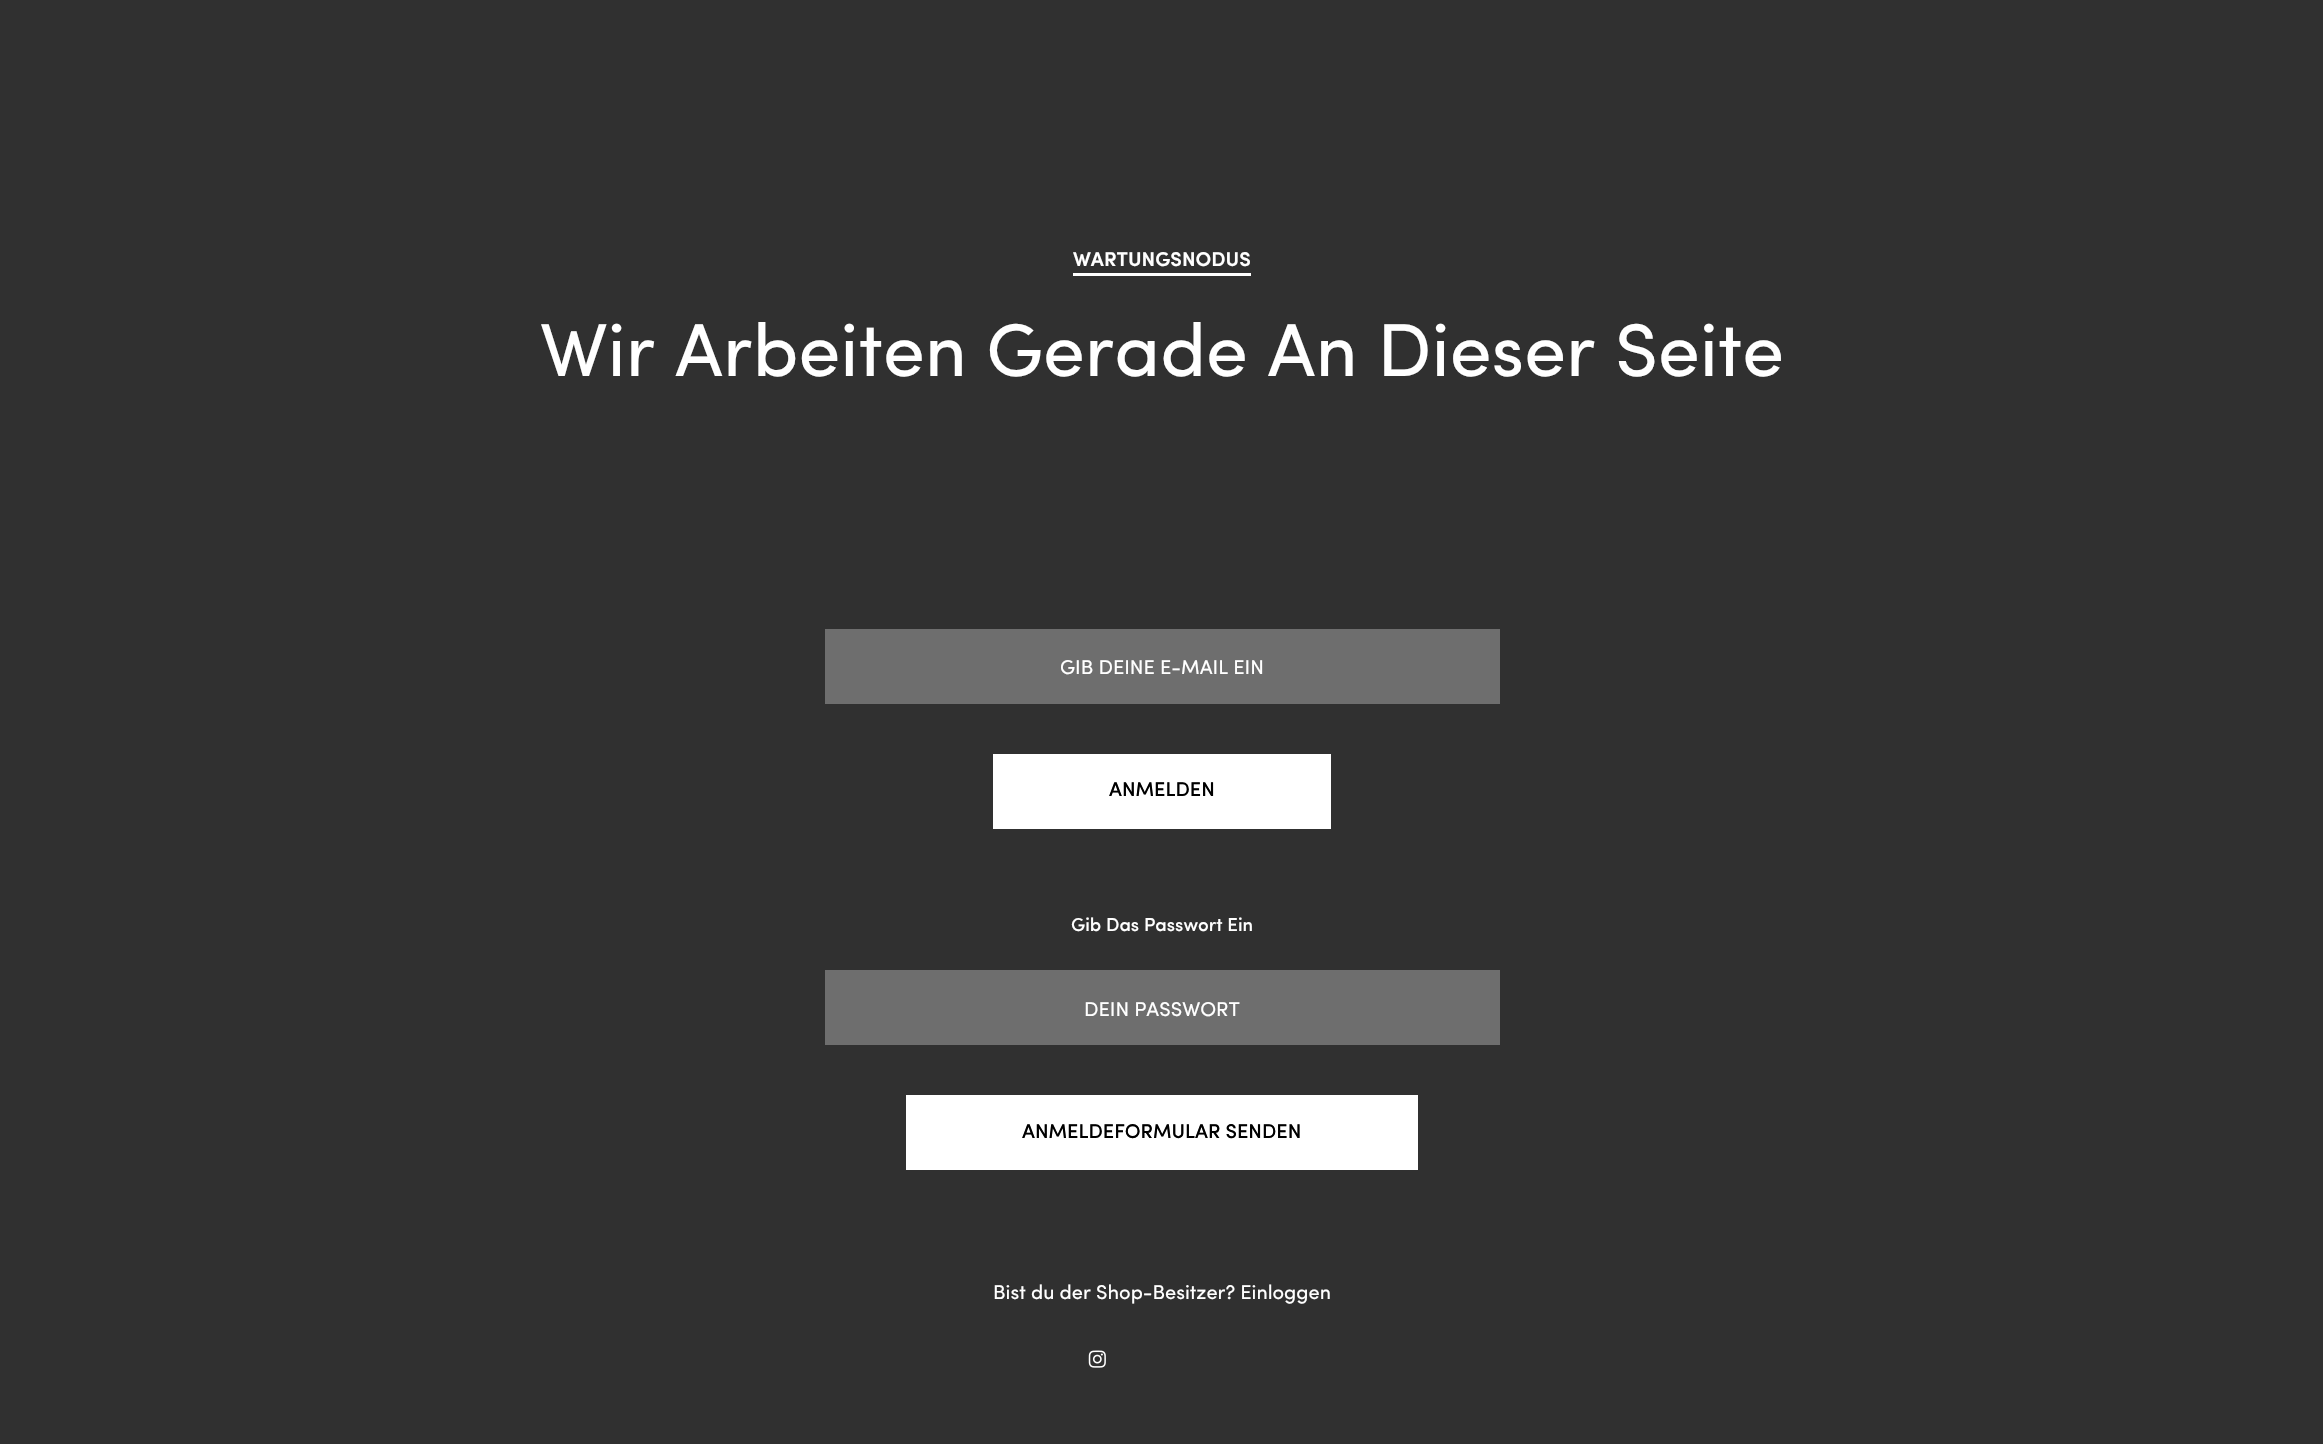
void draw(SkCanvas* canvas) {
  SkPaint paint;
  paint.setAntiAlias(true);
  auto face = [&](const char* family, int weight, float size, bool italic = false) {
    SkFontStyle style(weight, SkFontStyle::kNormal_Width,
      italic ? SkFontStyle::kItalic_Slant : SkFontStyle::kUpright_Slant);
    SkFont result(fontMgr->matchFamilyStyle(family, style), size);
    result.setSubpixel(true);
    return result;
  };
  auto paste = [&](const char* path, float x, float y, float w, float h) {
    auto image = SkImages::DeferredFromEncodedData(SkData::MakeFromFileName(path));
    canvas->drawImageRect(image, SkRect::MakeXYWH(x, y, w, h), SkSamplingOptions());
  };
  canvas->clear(0xff303030);
  {
    const struct { float x, y, w, h; SkColor color; } items[] = {
      {1073, 273, 178, 3, 0xffffffff},
      {825, 629, 675, 75, 0xff6e6e6e},
      {993, 754, 338, 75, 0xffffffff},
      {825, 970, 675, 75, 0xff6e6e6e},
      {906, 1095, 512, 75, 0xffffffff},
    };
    for (auto [x, y, w, h, color] : items) {
      paint.setColor(color);
      canvas->drawRect(SkRect::MakeXYWH(x, y, w, h), paint);
    }
  }
  paste("img/1.png", 1088, 1350, 18, 18);
  auto f0 = face("Sofia", 600, 20);
  canvas->drawString("WARTUNGSNODUS", 1073, 266, f0, paint);
  auto f1 = face("Sofia", 400, 75);
  canvas->drawString("Wir Arbeiten Gerade An Dieser Seite", 540, 376, f1, paint);
  auto f2 = face("Sofia", 400, 20);
  canvas->drawString("GIB DEINE E-MAIL EIN", 1060, 674, f2, paint);
  auto f3 = face("Sofia", 500, 20);
  paint.setColor(0xff000000);
  canvas->drawString("ANMELDEN", 1109, 796, f3, paint);
  auto f4 = face("Sofia", 500, 18.75f);
  paint.setColor(0xffffffff);
  canvas->drawString("Gib Das Passwort Ein", 1071, 931, f4, paint);
  canvas->drawString("DEIN PASSWORT", 1084, 1016, f2, paint);
  paint.setColor(0xff000000);
  canvas->drawString("ANMELDEFORMULAR SENDEN", 1022, 1138, f3, paint);
  paint.setColor(0xffffffff);
  canvas->drawString("Bist du der Shop-Besitzer? Einloggen", 993, 1299, f2, paint);
}
